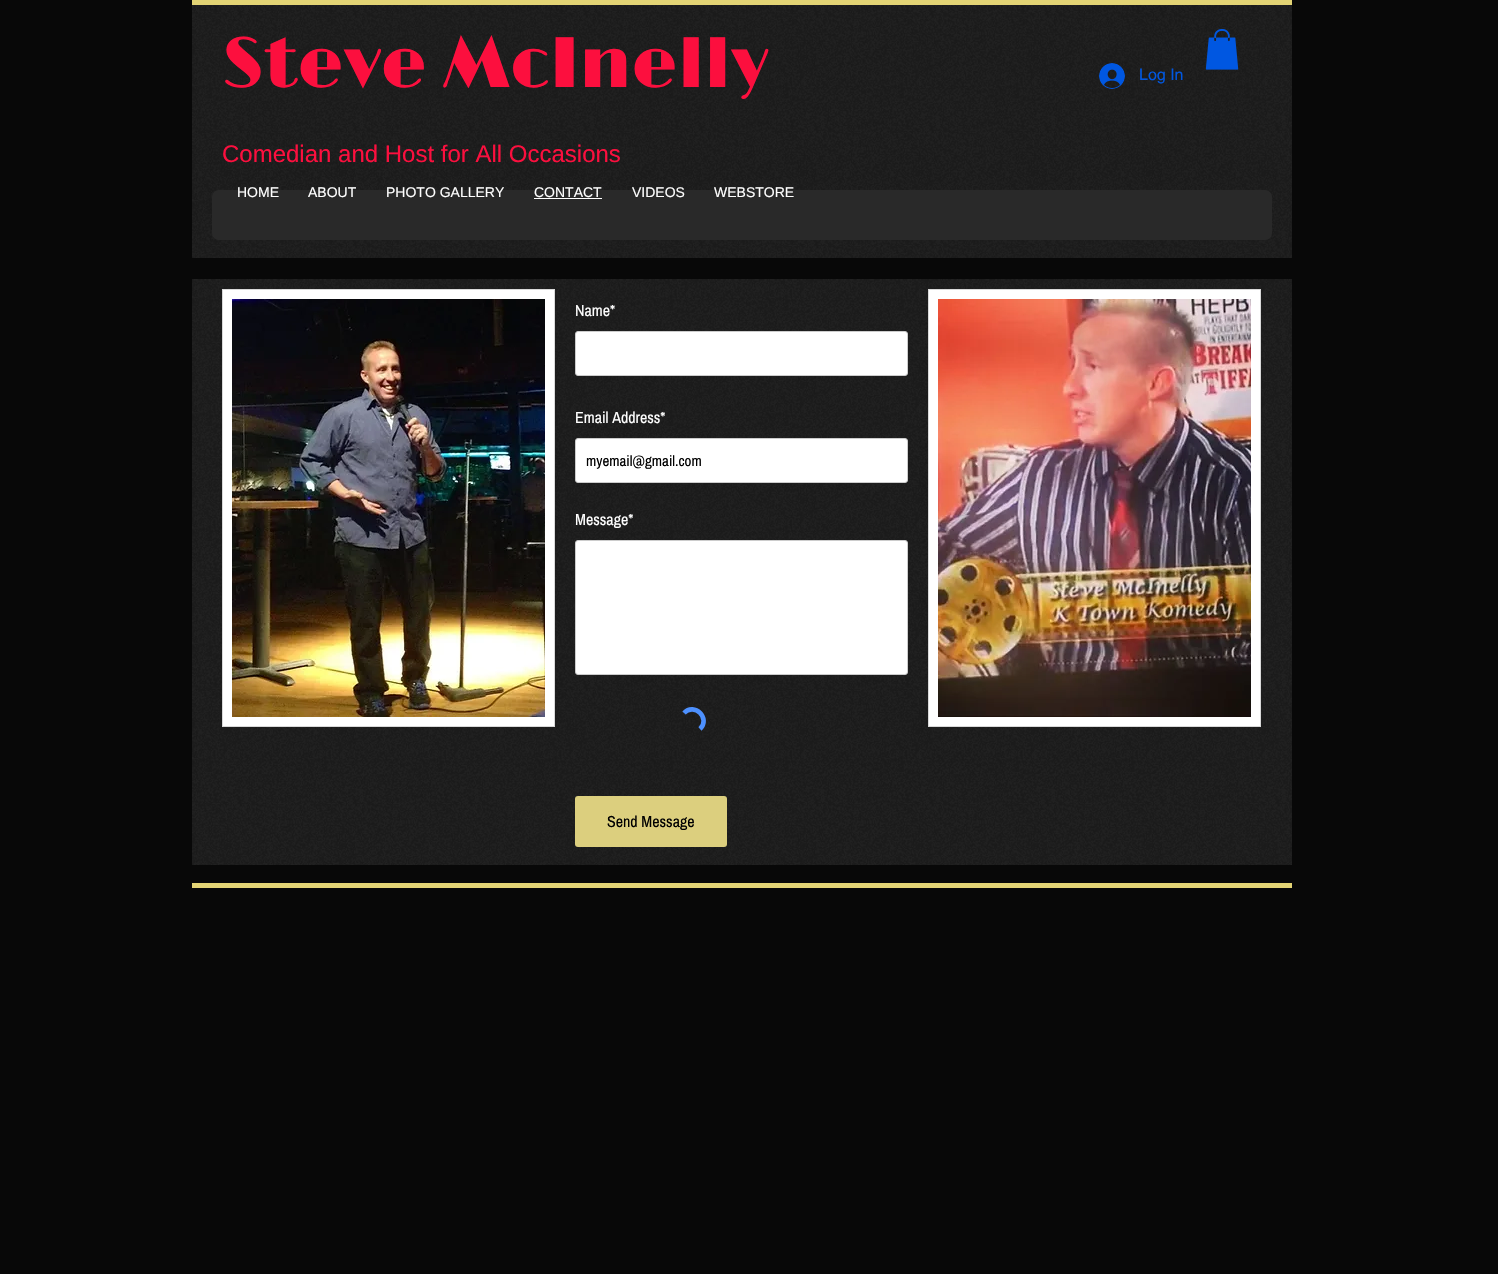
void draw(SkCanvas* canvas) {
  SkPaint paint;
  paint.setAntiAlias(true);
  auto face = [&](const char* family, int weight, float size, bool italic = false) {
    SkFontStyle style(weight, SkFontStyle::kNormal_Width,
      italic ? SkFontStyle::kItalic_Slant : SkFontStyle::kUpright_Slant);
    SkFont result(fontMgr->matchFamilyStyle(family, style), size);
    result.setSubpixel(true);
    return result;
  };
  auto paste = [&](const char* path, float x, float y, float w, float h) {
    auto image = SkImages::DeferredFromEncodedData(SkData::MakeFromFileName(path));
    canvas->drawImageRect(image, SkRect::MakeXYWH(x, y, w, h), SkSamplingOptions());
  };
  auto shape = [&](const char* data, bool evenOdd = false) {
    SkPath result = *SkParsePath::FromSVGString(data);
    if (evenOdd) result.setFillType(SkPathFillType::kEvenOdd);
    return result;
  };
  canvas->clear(0xff080808);
  paste("img/1.png", 192, 5, 1100, 253);
  paint.setColor(0xffe3d475);
  canvas->drawRect(SkRect::MakeXYWH(192, 0, 1100, 5), paint);
  paint.setColor(0xff292929);
  canvas->drawRoundRect(SkRect::MakeXYWH(212, 190, 1060, 50), 7, 7, paint);
  paste("img/2.png", 1099, 63, 26, 26);
  paste("img/3.png", 1205, 29, 34, 41);
  paint.setColor(0xffffffff);
  canvas->drawRect(SkRect::MakeXYWH(534, 198, 68, 1), paint);
  paste("img/4.png", 192, 279, 1100, 586);
  canvas->drawRect(SkRect::MakeXYWH(222.5f, 289.5f, 332, 437), paint);
  paint.setStroke(true);
  paint.setStrokeWidth(1);
  paint.setColor(0xffd9d9d9);
  canvas->drawRect(SkRect::MakeXYWH(222.5f, 289.5f, 332, 437), paint);
  paste("img/5.png", 232, 299, 313, 418);
  paint.setStroke(false);
  paint.setColor(0xffffffff);
  canvas->drawRoundRect(SkRect::MakeXYWH(575.5f, 331.5f, 332, 44), 2.5f, 2.5f, paint);
  paint.setStroke(true);
  paint.setColor(0xffcccccc);
  canvas->drawRoundRect(SkRect::MakeXYWH(575.5f, 331.5f, 332, 44), 2.5f, 2.5f, paint);
  paint.setStroke(false);
  paint.setColor(0xffffffff);
  canvas->drawRoundRect(SkRect::MakeXYWH(575.5f, 438.5f, 332, 44), 2.5f, 2.5f, paint);
  paint.setStroke(true);
  paint.setColor(0xffcccccc);
  canvas->drawRoundRect(SkRect::MakeXYWH(575.5f, 438.5f, 332, 44), 2.5f, 2.5f, paint);
  paint.setStroke(false);
  paint.setColor(0xffffffff);
  canvas->drawRoundRect(SkRect::MakeXYWH(575.5f, 540.5f, 332, 134), 2.5f, 2.5f, paint);
  paint.setStroke(true);
  paint.setColor(0xffcccccc);
  canvas->drawRoundRect(SkRect::MakeXYWH(575.5f, 540.5f, 332, 134), 2.5f, 2.5f, paint);
  paint.setStrokeWidth(4.6f);
  paint.setColor(0xff4d90fe);
  canvas->drawPath(shape("M684 713C694.5 702 711 718.5 700 729"), paint);
  paint.setStroke(false);
  paint.setColor(0xffdccf7e);
  canvas->drawRoundRect(SkRect::MakeXYWH(575, 796, 152, 51), 3, 3, paint);
  paint.setColor(0xffffffff);
  canvas->drawRect(SkRect::MakeXYWH(928.5f, 289.5f, 332, 437), paint);
  paint.setStroke(true);
  paint.setStrokeWidth(1);
  paint.setColor(0xffd9d9d9);
  canvas->drawRect(SkRect::MakeXYWH(928.5f, 289.5f, 332, 437), paint);
  paste("img/6.png", 938, 299, 313, 418);
  paint.setStroke(false);
  paint.setColor(0xffe3d475);
  canvas->drawRect(SkRect::MakeXYWH(192, 883, 1100, 5), paint);
  auto f0 = face("Limelight", 300, 72);
  paint.setColor(0xfffc0f3e);
  canvas->drawString("Steve McInelly", 222, 87, f0, paint);
  auto f1 = face("Liberation Sans", 400, 24);
  canvas->drawString("Comedian and Host for All Occasions", 222, 162, f1, paint);
  auto f2 = face("helvetica", 400, 16);
  paint.setColor(0xff0057e1);
  canvas->drawString("Log In", 1139, 80, f2, paint);
  auto f3 = face("Liberation Sans", 400, 14);
  paint.setColor(0xffffffff);
  {
    const struct { const char* s; float x, y; } items[] = {
      {"HOME", 237, 197},
      {"ABOUT", 308, 197},
      {"PHOTO GALLERY", 386, 197},
      {"CONTACT", 534, 197},
      {"VIDEOS", 632, 197},
      {"WEBSTORE", 714, 197},
    };
    for (auto [s, x, y] : items) {
      canvas->drawString(s, x, y, f3, paint);
    }
  }
  auto f4 = face("Archivo Narrow", 400, 16);
  canvas->drawString("Name*", 575, 316, f4, paint);
  canvas->drawString("Email Address*", 575, 423, f4, paint);
  auto f5 = face("Archivo Narrow", 400, 15);
  paint.setColor(0xff000000);
  canvas->drawString("myemail@gmail.com", 586, 466, f5, paint);
  paint.setColor(0xffffffff);
  canvas->drawString("Message*", 575, 525, f4, paint);
  paint.setColor(0xff000000);
  canvas->drawString("Send Message", 607, 827, f4, paint);
}
